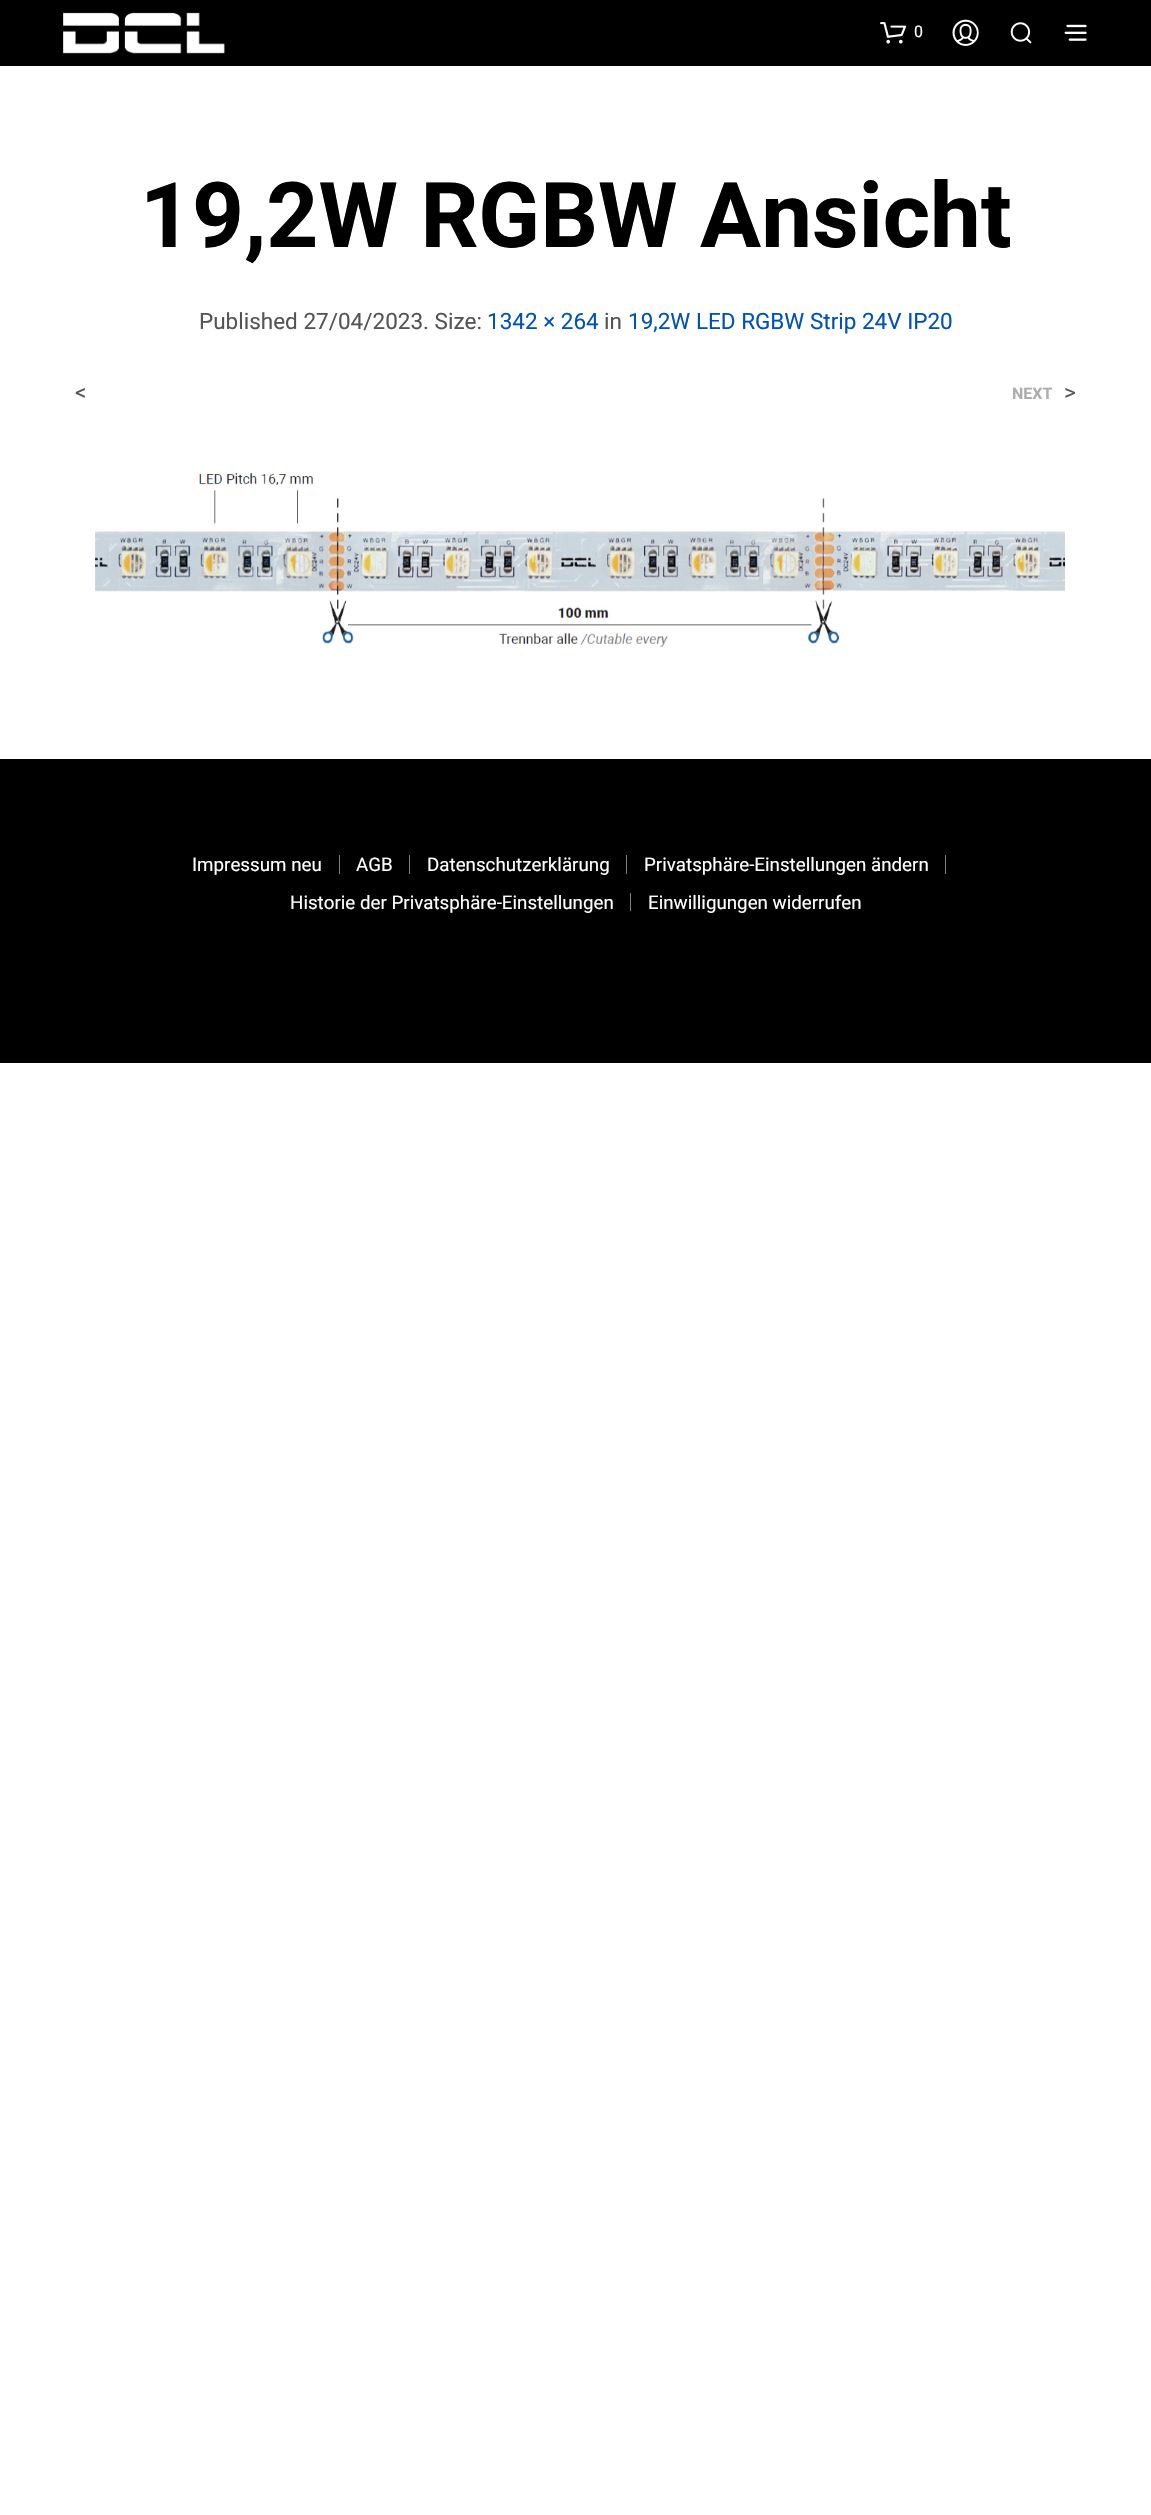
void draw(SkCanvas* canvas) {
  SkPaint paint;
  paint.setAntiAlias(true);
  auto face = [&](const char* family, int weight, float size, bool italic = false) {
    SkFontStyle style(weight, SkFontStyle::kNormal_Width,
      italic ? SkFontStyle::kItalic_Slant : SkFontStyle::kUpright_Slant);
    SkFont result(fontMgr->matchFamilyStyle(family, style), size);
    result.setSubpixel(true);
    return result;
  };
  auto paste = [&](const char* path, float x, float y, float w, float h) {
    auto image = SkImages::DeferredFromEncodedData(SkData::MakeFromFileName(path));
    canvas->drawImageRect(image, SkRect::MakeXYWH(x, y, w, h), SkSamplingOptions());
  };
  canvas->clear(0xffffffff);
  paint.setColor(0xff000000);
  canvas->drawRect(SkRect::MakeXYWH(0, 0, 1151, 66), paint);
  paste("img/1.png", 63, 12, 162, 42);
  paste("img/2.png", 880, 22, 27, 22);
  paste("img/3.png", 952, 19, 27, 27);
  paste("img/4.png", 1010, 22, 22, 22);
  paste("img/5.png", 1064, 24, 23, 17);
  paste("img/6.png", 95, 473, 970, 174);
  {
    const struct { float x, y, w, h; SkColor color; } items[] = {
      {0, 759, 1151, 304, 0xff000000},
      {339, 855, 1, 19, 0xff808080},
      {409, 855, 1, 19, 0xff808080},
      {626, 855, 1, 19, 0xff808080},
      {945, 855, 1, 19, 0xff808080},
      {630, 893, 1, 18, 0xff808080},
    };
    for (auto [x, y, w, h, color] : items) {
      paint.setColor(color);
      canvas->drawRect(SkRect::MakeXYWH(x, y, w, h), paint);
    }
  }
  auto f0 = face("Roboto", 400, 16);
  paint.setColor(0xffffffff);
  canvas->drawString("0", 914, 37, f0, paint);
  auto f1 = face("Roboto", 700, 90.75f);
  paint.setColor(0xff000000);
  canvas->drawString("19,2W RGBW Ansicht", 140, 247, f1, paint);
  auto f2 = face("Roboto", 400, 22.5f);
  paint.setColor(0xff545454);
  canvas->drawString("Published 27/04/2023. Size:", 199, 329, f2, paint);
  paint.setColor(0xff0052b7);
  canvas->drawString("1342 × 264", 487, 329, f2, paint);
  paint.setColor(0xff545454);
  canvas->drawString("in", 604, 329, f2, paint);
  paint.setColor(0xff0052b7);
  canvas->drawString("19,2W LED RGBW Strip 24V IP20", 628, 329, f2, paint);
  paint.setColor(0xff545454);
  canvas->drawString("<", 75, 400, f2, paint);
  auto f3 = face("Roboto", 700, 16);
  paint.setColor(0xffadadad);
  canvas->drawString("NEXT", 1012, 399, f3, paint);
  paint.setColor(0xff545454);
  canvas->drawString(">", 1064, 400, f2, paint);
  auto f4 = face("Roboto", 400, 18.75f);
  paint.setColor(0xffffffff);
  {
    const struct { const char* s; float x, y; } items[] = {
      {"Impressum neu", 192, 871},
      {"AGB", 356, 871},
      {"Datenschutzerklärung", 427, 871},
      {"Privatsphäre-Einstellungen ändern", 644, 871},
      {"Historie der Privatsphäre-Einstellungen", 290, 909},
      {"Einwilligungen widerrufen", 648, 909},
    };
    for (auto [s, x, y] : items) {
      canvas->drawString(s, x, y, f4, paint);
    }
  }
}
